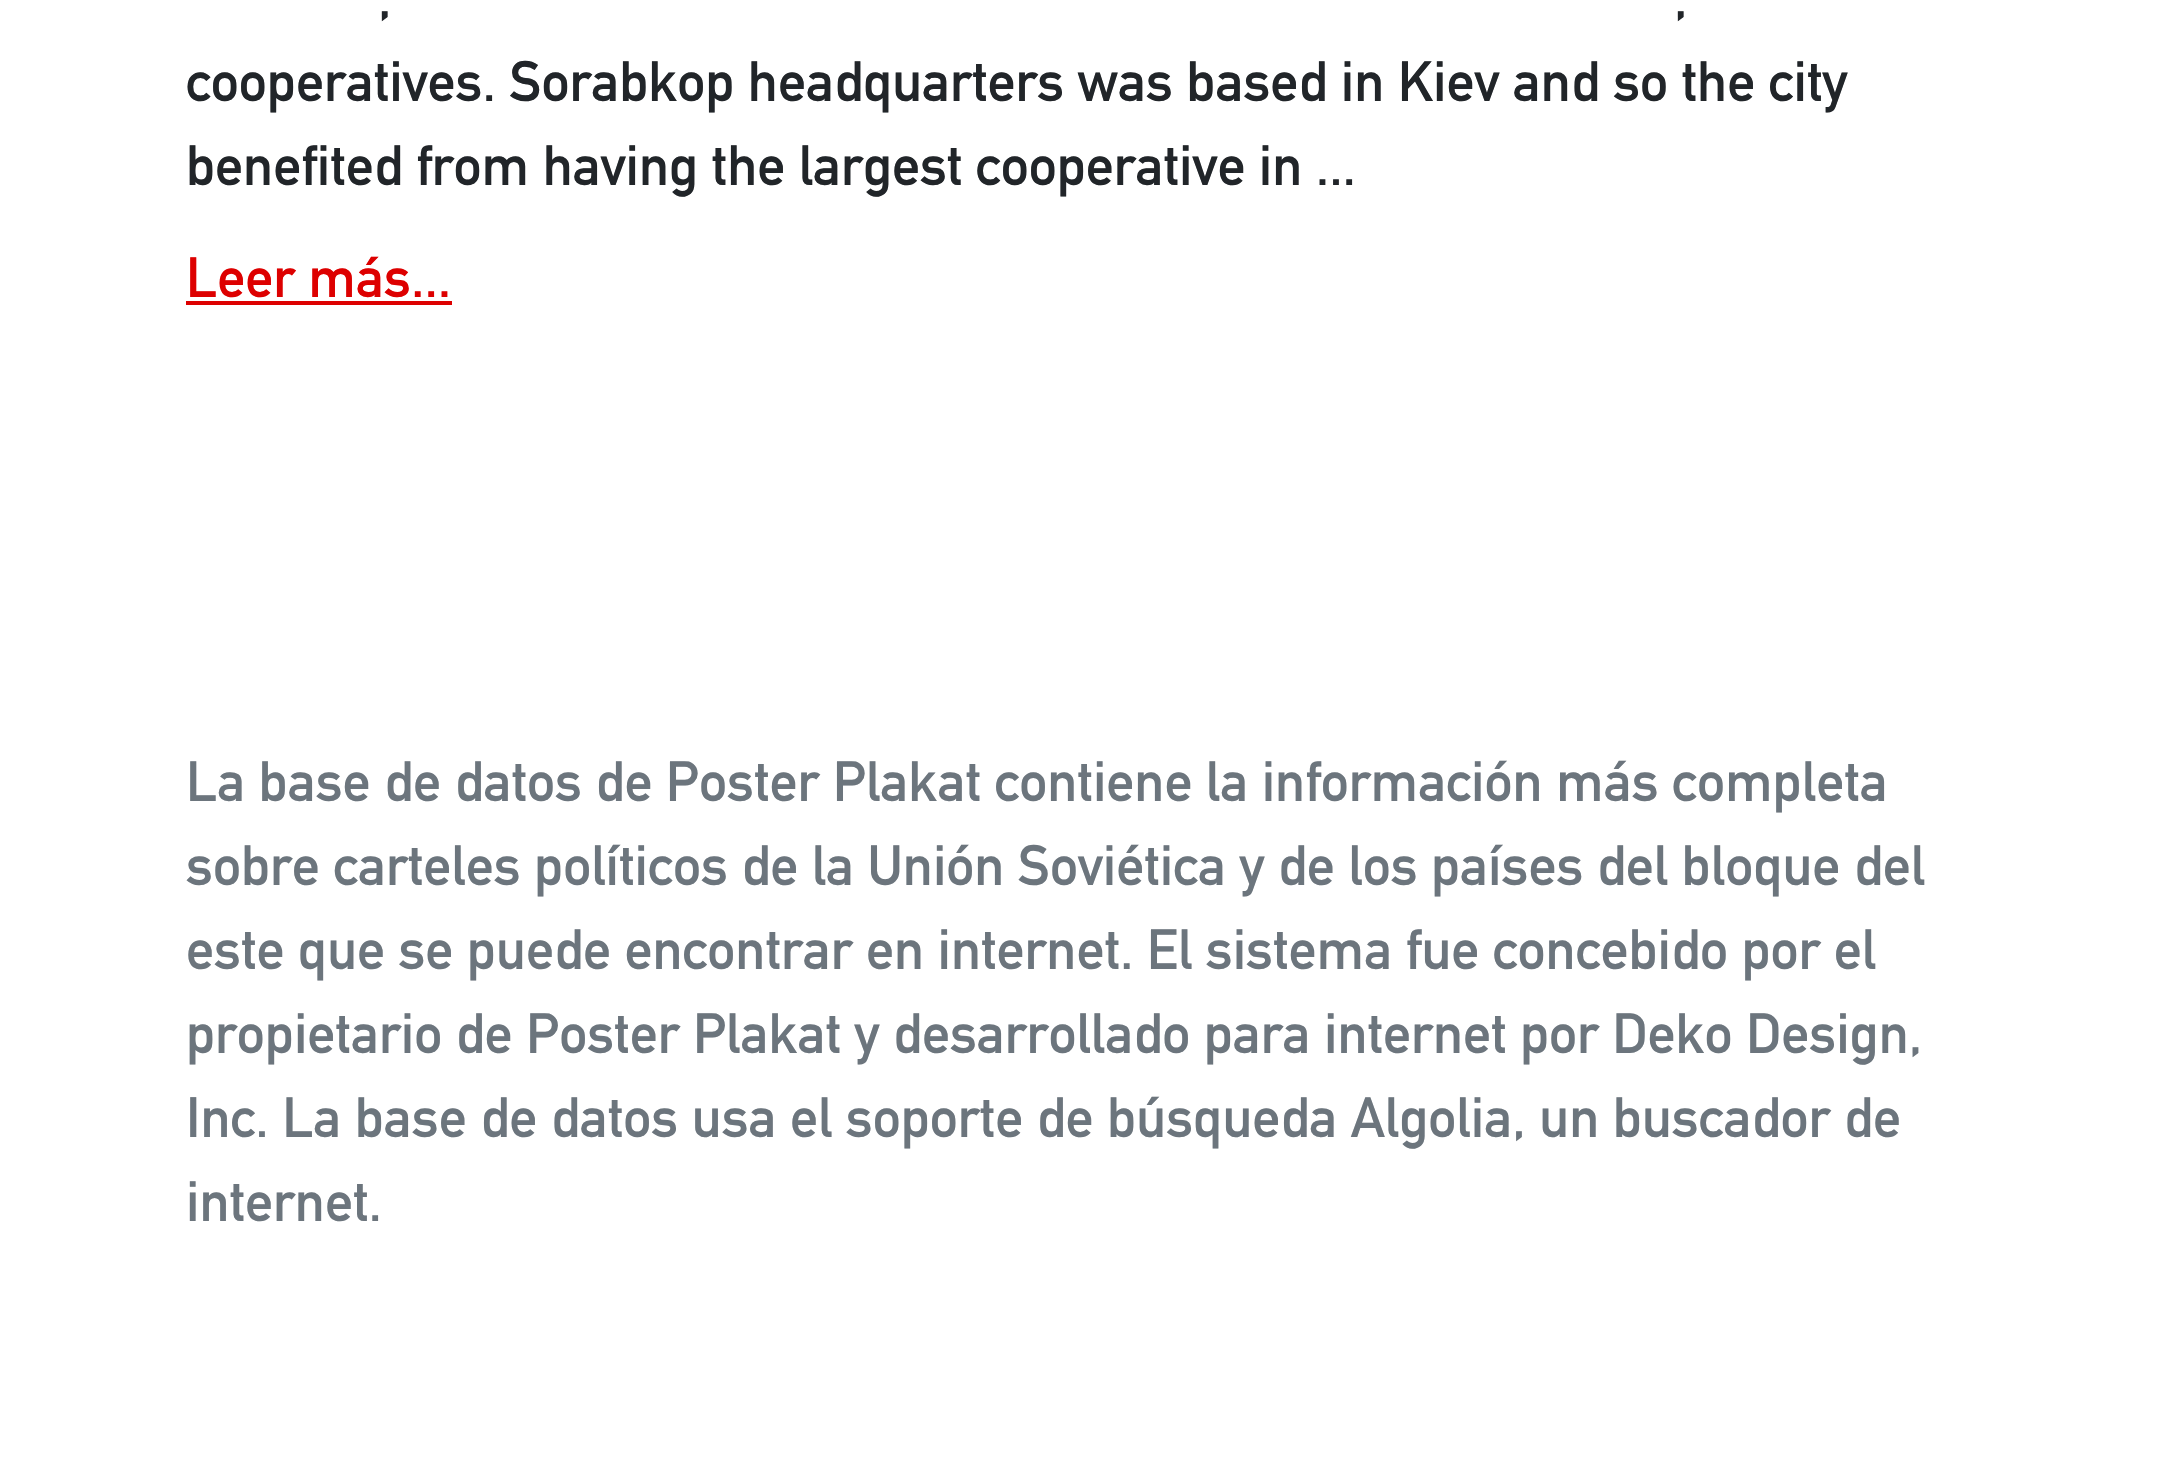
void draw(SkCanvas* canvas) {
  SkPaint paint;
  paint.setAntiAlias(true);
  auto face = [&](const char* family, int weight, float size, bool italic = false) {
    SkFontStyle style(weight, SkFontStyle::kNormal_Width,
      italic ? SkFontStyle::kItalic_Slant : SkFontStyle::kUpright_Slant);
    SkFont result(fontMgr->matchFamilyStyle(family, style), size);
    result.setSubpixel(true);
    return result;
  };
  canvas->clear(0xffffffff);
  paint.setColor(0xffdd0000);
  canvas->drawRect(SkRect::MakeXYWH(186, 301, 266, 4), paint);
  auto f0 = face("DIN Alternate", 700, 56);
  paint.setColor(0xff212529);
  {
    const struct { const char* s; float x, y; } items[] = {
      {",", 378, 17},
      {",", 1674, 17},
      {"cooperatives. Sorabkop headquarters was based in Kiev and so the city", 186, 101},
      {"benefited from having the largest cooperative in ...", 186, 185},
    };
    for (auto [s, x, y] : items) {
      canvas->drawString(s, x, y, f0, paint);
    }
  }
  paint.setColor(0xffdd0000);
  canvas->drawString("Leer más...", 186, 297, f0, paint);
  paint.setColor(0xff6c757d);
  {
    const struct { const char* s; float x, y; } items[] = {
      {"La base de datos de Poster Plakat contiene la información más completa", 186, 801},
      {"sobre carteles políticos de la Unión Soviética y de los países del bloque del", 186, 885},
      {"este que se puede encontrar en internet. El sistema fue concebido por el", 186, 969},
      {"propietario de Poster Plakat y desarrollado para internet por Deko Design,", 186, 1053},
      {"Inc. La base de datos usa el soporte de búsqueda Algolia, un buscador de", 186, 1137},
      {"internet.", 186, 1221},
    };
    for (auto [s, x, y] : items) {
      canvas->drawString(s, x, y, f0, paint);
    }
  }
}
